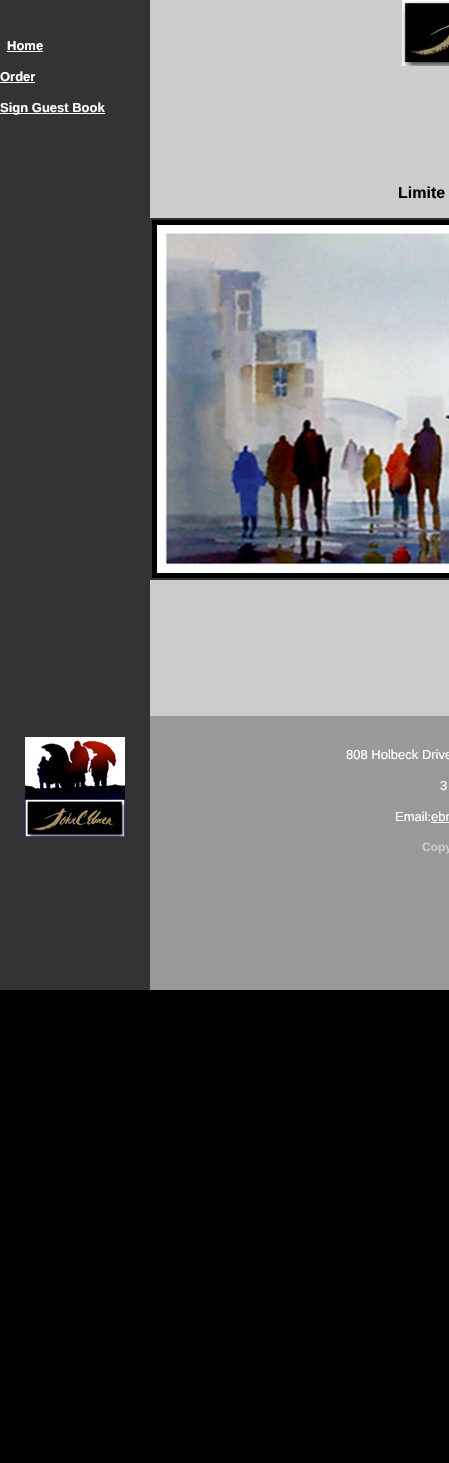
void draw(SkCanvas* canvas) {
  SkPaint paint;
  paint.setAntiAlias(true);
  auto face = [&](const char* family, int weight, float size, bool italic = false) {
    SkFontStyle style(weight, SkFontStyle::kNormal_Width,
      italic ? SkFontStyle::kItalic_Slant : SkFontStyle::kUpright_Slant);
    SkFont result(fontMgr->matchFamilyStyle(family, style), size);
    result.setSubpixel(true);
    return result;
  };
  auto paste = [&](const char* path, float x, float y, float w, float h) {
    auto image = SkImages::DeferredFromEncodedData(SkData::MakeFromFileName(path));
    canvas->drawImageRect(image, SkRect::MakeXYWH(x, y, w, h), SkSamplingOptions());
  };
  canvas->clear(0xff000000);
  {
    const struct { float x, y, w, h; SkColor color; } items[] = {
      {0, 0, 150, 990, 0xff333333},
      {7, 51, 36, 1, 0xffffffff},
      {0, 82, 35, 1, 0xffffffff},
      {0, 113, 105, 1, 0xffffffff},
      {150, 0, 299, 716, 0xffcccccc},
    };
    for (auto [x, y, w, h, color] : items) {
      paint.setColor(color);
      canvas->drawRect(SkRect::MakeXYWH(x, y, w, h), paint);
    }
  }
  paste("img/1.png", 402, 0, 47, 66);
  paint.setColor(0xff333333);
  canvas->drawRect(SkRect::MakeXYWH(150, 218, 299, 362), paint);
  paint.setColor(0xff000000);
  canvas->drawRect(SkRect::MakeXYWH(152, 220, 297, 358), paint);
  paste("img/2.png", 157, 225, 292, 348);
  paste("img/3.png", 25, 737, 100, 100);
  paint.setColor(0xff999999);
  canvas->drawRect(SkRect::MakeXYWH(150, 716, 299, 274), paint);
  paint.setColor(0xffffffff);
  canvas->drawRect(SkRect::MakeXYWH(431, 822, 18, 1), paint);
  auto f0 = face("Liberation Sans", 700, 13);
  {
    const struct { const char* s; float x, y; } items[] = {
      {"Home", 7, 50},
      {"Order", 0, 81},
      {"Sign Guest Book", 0, 112},
    };
    for (auto [s, x, y] : items) {
      canvas->drawString(s, x, y, f0, paint);
    }
  }
  auto f1 = face("Liberation Sans", 700, 16);
  paint.setColor(0xff000000);
  canvas->drawString("Limite", 398, 198, f1, paint);
  auto f2 = face("Liberation Sans", 400, 13);
  paint.setColor(0xffffffff);
  {
    const struct { const char* s; float x, y; } items[] = {
      {"808 Holbeck Drive", 346, 759},
      {"3", 440, 790},
      {"Email:ebn", 395, 821},
    };
    for (auto [s, x, y] : items) {
      canvas->drawString(s, x, y, f2, paint);
    }
  }
  auto f3 = face("Liberation Sans", 700, 12);
  paint.setColor(0xffcccccc);
  canvas->drawString("Copy", 422, 851, f3, paint);
}
